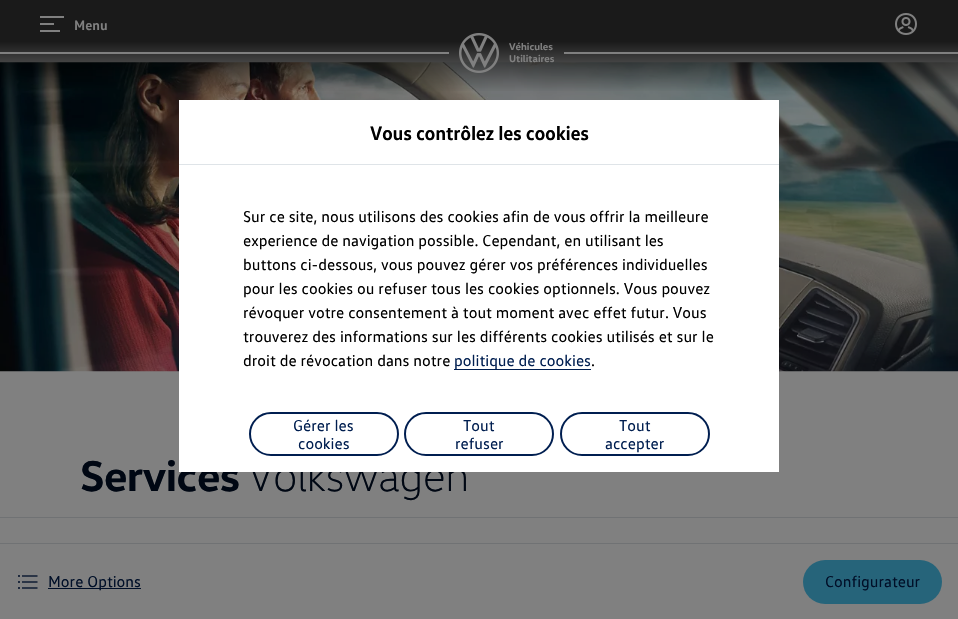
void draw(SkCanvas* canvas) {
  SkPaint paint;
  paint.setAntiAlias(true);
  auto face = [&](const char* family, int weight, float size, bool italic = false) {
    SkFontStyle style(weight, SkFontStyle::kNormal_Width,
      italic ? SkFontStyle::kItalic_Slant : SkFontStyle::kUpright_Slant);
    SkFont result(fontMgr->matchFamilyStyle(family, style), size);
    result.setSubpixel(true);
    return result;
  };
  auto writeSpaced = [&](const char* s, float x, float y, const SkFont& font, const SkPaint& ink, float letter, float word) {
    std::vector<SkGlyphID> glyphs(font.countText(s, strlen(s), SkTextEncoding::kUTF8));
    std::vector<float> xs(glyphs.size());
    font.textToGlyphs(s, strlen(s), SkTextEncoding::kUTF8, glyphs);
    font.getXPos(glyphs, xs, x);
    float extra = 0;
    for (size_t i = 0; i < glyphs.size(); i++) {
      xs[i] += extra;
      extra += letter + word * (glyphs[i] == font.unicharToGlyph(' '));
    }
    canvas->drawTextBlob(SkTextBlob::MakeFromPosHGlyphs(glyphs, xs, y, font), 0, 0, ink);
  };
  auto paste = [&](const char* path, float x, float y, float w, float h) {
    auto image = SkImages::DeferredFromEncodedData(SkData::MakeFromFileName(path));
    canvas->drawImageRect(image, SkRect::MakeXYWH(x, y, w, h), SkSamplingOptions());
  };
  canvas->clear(0xff808080);
  paste("img/4.png", 0, 62, 958, 310);
  {
    const SkColor colors[] = {0xcc000000, 0x00000000};
    const float stops[] = {0.45f, 1};
    const SkPoint ends[] = {{479, 0}, {479, 92}};
    paint.setShader(SkGradientShader::MakeLinear(ends, colors, stops, 2, SkTileMode::kClamp));
    paint.setAlpha(255);
  }
  canvas->drawRect(SkRect::MakeXYWH(0, 0, 958, 91), paint);
  paste("img/1.png", 40, 16, 24, 16);
  paste("img/2.png", 895, 13, 22, 22);
  paint.setShader(nullptr);
  paint.setColor(0xff808080);
  canvas->drawRect(SkRect::MakeXYWH(0, 52, 449, 2), paint);
  paste("img/3.png", 459, 33, 40, 40);
  {
    const struct { float x, y, w, h; SkColor color; } items[] = {
      {564, 52, 394, 2, 0xff808080},
      {0, 517, 958, 1, 0xff707274},
      {0, 543, 958, 1, 0xff707274},
    };
    for (auto [x, y, w, h, color] : items) {
      paint.setColor(color);
      canvas->drawRect(SkRect::MakeXYWH(x, y, w, h), paint);
    }
  }
  paste("img/5.png", 18, 575, 20, 14);
  paint.setColor(0xff000f28);
  canvas->drawRect(SkRect::MakeXYWH(48, 588, 93, 1), paint);
  paint.setColor(0xff26647a);
  canvas->drawRoundRect(SkRect::MakeXYWH(803, 560, 139, 44), 22, 22, paint);
  auto f0 = face("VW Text", 700, 14);
  paint.setColor(0xff808080);
  canvas->drawString("Menu", 74, 30, f0, paint);
  auto f1 = face("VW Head", 700, 10);
  canvas->drawString("Véhicules", 509, 50, f1, paint);
  canvas->drawString("Utilitaires", 509, 62, f1, paint);
  auto f2 = face("VW Head", 700, 43.5f);
  paint.setColor(0xff000713);
  writeSpaced("Services", 80, 491, f2, paint, -0.5f, 0);
  auto f3 = face("VW Head", 300, 43.5f);
  writeSpaced("Volkswagen", 248, 491, f3, paint, -0.5f, 0);
  auto f4 = face("VW Text", 400, 16);
  paint.setColor(0xff000f28);
  canvas->drawString("More Options", 48, 587, f4, paint);
  canvas->drawString("Configurateur", 825, 587, f4, paint);
  paint.setColor(0xffffffff);
  canvas->drawRect(SkRect::MakeXYWH(179, 100, 600, 372), paint);
  paint.setColor(0xffdfe4e8);
  canvas->drawRect(SkRect::MakeXYWH(179, 164, 600, 1), paint);
  auto f5 = face("VW Text", 700, 20);
  paint.setColor(0xff000000);
  writeSpaced("Vous contrôlez les cookies", 370, 140, f5, paint, -0.3f, 0);
  {
    const struct { const char* s; float x, y; } items[] = {
      {"Sur ce site, nous utilisons des cookies afin de vous offrir la meilleure", 243, 222},
      {"experience de navigation possible. Cependant, en utilisant les", 243, 246},
      {"buttons ci-dessous, vous pouvez gérer vos préférences individuelles", 243, 270},
      {"pour les cookies ou refuser tous les cookies optionnels. Vous pouvez", 243, 294},
      {"révoquer votre consentement à tout moment avec effet futur. Vous", 243, 318},
      {"trouverez des informations sur les différents cookies utilisés et sur le", 243, 342},
      {"droit de révocation dans notre", 243, 366},
    };
    for (auto [s, x, y] : items) {
      canvas->drawString(s, x, y, f4, paint);
    }
  }
  paint.setColor(0xff001e50);
  canvas->drawRect(SkRect::MakeXYWH(454, 369, 137, 1), paint);
  canvas->drawString("politique de cookies", 454, 366, f4, paint);
  paint.setColor(0xff000000);
  canvas->drawString(".", 591, 366, f4, paint);
  paint.setStroke(true);
  paint.setStrokeWidth(2);
  paint.setColor(0xff001e50);
  canvas->drawRoundRect(SkRect::MakeXYWH(250, 413, 148, 42), 21, 21, paint);
  paint.setStroke(false);
  canvas->drawString("Gérer les", 293, 431, f4, paint);
  canvas->drawString("cookies", 298, 449, f4, paint);
  paint.setStroke(true);
  canvas->drawRoundRect(SkRect::MakeXYWH(405, 413, 148, 42), 21, 21, paint);
  paint.setStroke(false);
  canvas->drawString("Tout", 463, 431, f4, paint);
  canvas->drawString("refuser", 455, 449, f4, paint);
  paint.setStroke(true);
  canvas->drawRoundRect(SkRect::MakeXYWH(561, 413, 148, 42), 21, 21, paint);
  paint.setStroke(false);
  canvas->drawString("Tout", 619, 431, f4, paint);
  canvas->drawString("accepter", 605, 449, f4, paint);
}
